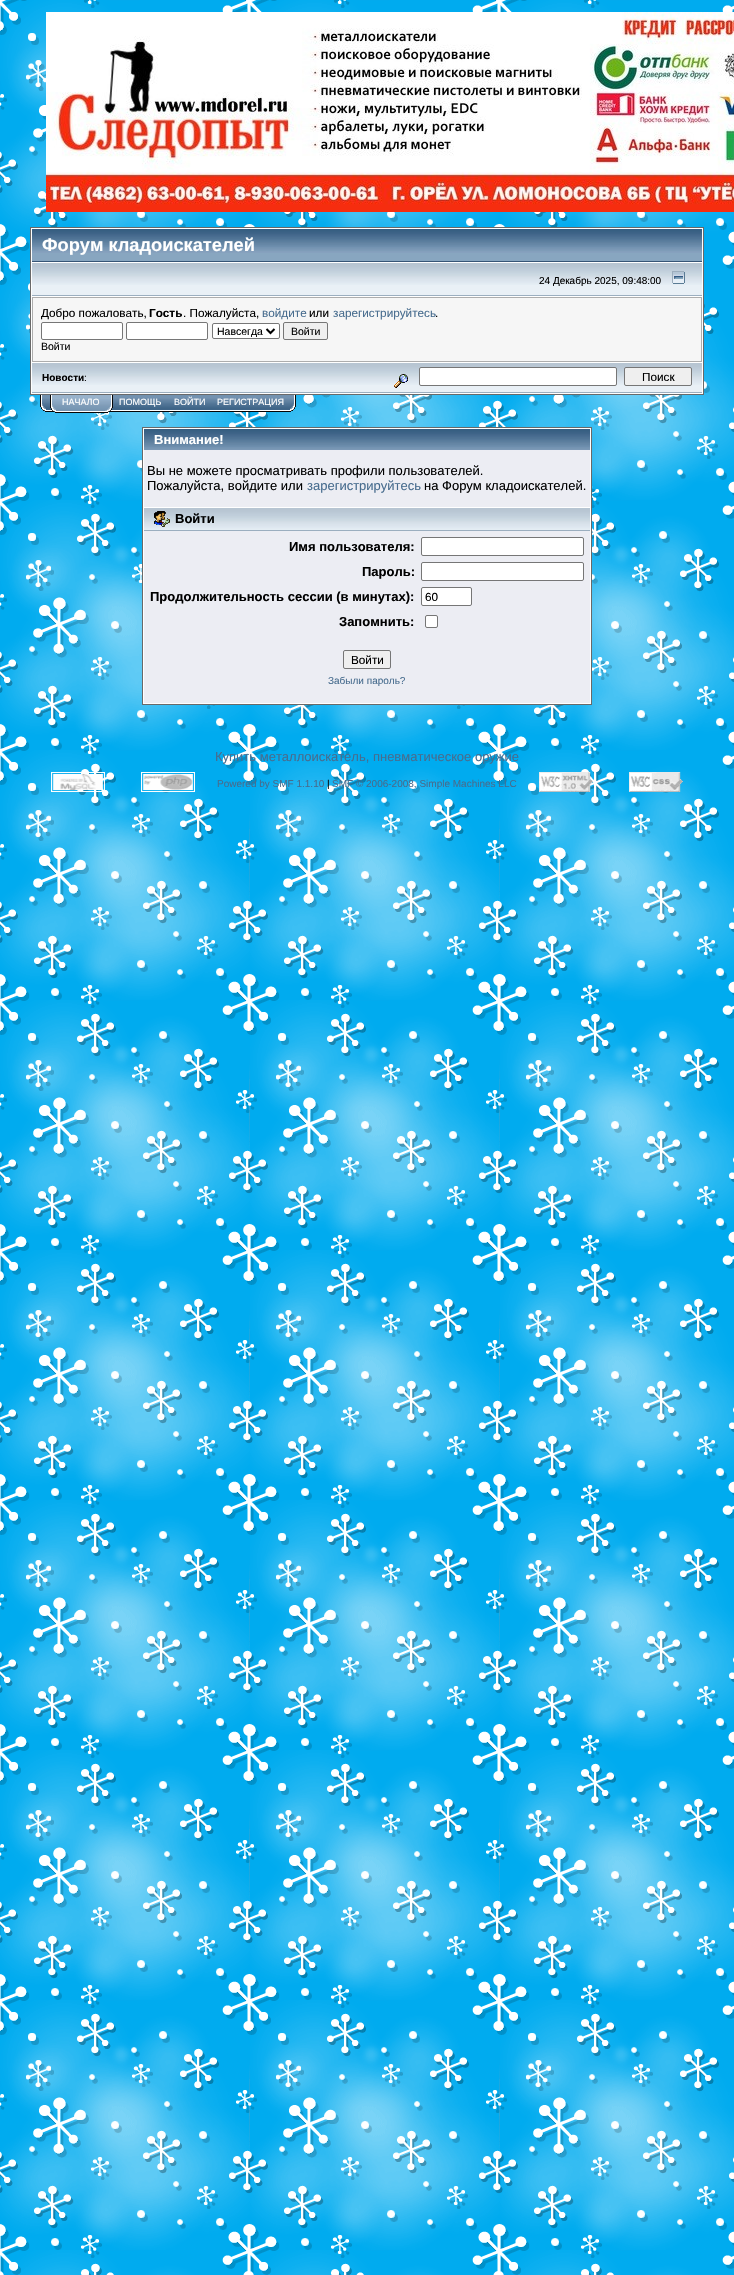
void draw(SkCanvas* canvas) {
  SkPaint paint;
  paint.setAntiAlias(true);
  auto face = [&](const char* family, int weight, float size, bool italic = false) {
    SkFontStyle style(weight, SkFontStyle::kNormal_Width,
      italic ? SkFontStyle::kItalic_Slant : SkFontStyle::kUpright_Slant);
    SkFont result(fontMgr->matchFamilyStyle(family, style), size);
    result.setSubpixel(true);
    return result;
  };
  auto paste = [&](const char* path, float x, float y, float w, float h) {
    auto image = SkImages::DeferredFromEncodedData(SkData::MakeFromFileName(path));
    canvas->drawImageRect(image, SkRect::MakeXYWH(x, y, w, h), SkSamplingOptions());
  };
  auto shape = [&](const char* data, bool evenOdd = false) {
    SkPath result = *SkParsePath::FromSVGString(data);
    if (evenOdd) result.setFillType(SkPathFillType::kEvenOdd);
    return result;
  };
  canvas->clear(0xffffffff);
  paste("img/1.png", 0, 0, 734, 2275);
  paste("img/2.png", 46, 12, 688, 200);
  paint.setColor(0xffffffff);
  canvas->drawRect(SkRect::MakeXYWH(30.5f, 227.5f, 673, 167), paint);
  paint.setStroke(true);
  paint.setStrokeWidth(1);
  paint.setColor(0xff696969);
  canvas->drawRect(SkRect::MakeXYWH(30.5f, 227.5f, 673, 167), paint);
  paint.setStroke(false);
  paint.setColor(0xff88a6c0);
  canvas->drawRect(SkRect::MakeXYWH(32, 253, 670, 8), paint);
  paste("img/3.png", 32, 229, 670, 24);
  paint.setColor(0xff375576);
  canvas->drawRect(SkRect::MakeXYWH(32, 261, 670, 1), paint);
  paint.setColor(0xffe9f0f6);
  canvas->drawRect(SkRect::MakeXYWH(32, 285, 670, 10), paint);
  paste("img/4.png", 32, 263, 670, 22);
  paint.setColor(0xff9baebf);
  canvas->drawRect(SkRect::MakeXYWH(32, 295, 670, 1), paint);
  paste("img/5.png", 672, 271, 13, 13);
  paint.setColor(0xffadadad);
  canvas->drawRect(SkRect::MakeXYWH(32, 297, 670, 65), paint);
  paint.setColor(0xfff6f6f6);
  canvas->drawRect(SkRect::MakeXYWH(33, 298, 668, 63), paint);
  paint.setColor(0xffffffff);
  canvas->drawRoundRect(SkRect::MakeXYWH(41.5f, 322.5f, 81, 17), 1.5f, 1.5f, paint);
  paint.setStroke(true);
  paint.setColor(0xff767676);
  canvas->drawRoundRect(SkRect::MakeXYWH(41.5f, 322.5f, 81, 17), 1.5f, 1.5f, paint);
  paint.setStroke(false);
  paint.setColor(0xffffffff);
  canvas->drawRoundRect(SkRect::MakeXYWH(126.5f, 322.5f, 81, 17), 1.5f, 1.5f, paint);
  paint.setStroke(true);
  paint.setColor(0xff767676);
  canvas->drawRoundRect(SkRect::MakeXYWH(126.5f, 322.5f, 81, 17), 1.5f, 1.5f, paint);
  paint.setStroke(false);
  paint.setColor(0xffffffff);
  canvas->drawRoundRect(SkRect::MakeXYWH(212.5f, 323.5f, 67, 15), 1.5f, 1.5f, paint);
  paint.setStroke(true);
  paint.setColor(0xff767676);
  canvas->drawRoundRect(SkRect::MakeXYWH(212.5f, 323.5f, 67, 15), 1.5f, 1.5f, paint);
  paint.setStrokeWidth(2);
  paint.setColor(0xff000000);
  canvas->drawPath(shape("M266.5 329L270.5 333L274.5 329"), paint);
  paint.setStroke(false);
  paint.setColor(0xffefefef);
  canvas->drawRoundRect(SkRect::MakeXYWH(283.5f, 322.5f, 44, 17), 1.5f, 1.5f, paint);
  paint.setStroke(true);
  paint.setStrokeWidth(1);
  paint.setColor(0xff767676);
  canvas->drawRoundRect(SkRect::MakeXYWH(283.5f, 322.5f, 44, 17), 1.5f, 1.5f, paint);
  paint.setStroke(false);
  paint.setColor(0xffe9f0f6);
  canvas->drawRect(SkRect::MakeXYWH(32, 385, 670, 7), paint);
  paste("img/6.png", 32, 363, 345, 22);
  paint.setColor(0xff9baebf);
  canvas->drawRect(SkRect::MakeXYWH(32, 392, 670, 1), paint);
  paste("img/7.png", 377, 363, 325, 22);
  paste("img/8.png", 394, 374, 14, 14);
  paint.setColor(0xffffffff);
  canvas->drawRoundRect(SkRect::MakeXYWH(419.5f, 367.5f, 197, 18), 1.5f, 1.5f, paint);
  paint.setStroke(true);
  paint.setColor(0xff767676);
  canvas->drawRoundRect(SkRect::MakeXYWH(419.5f, 367.5f, 197, 18), 1.5f, 1.5f, paint);
  paint.setStroke(false);
  paint.setColor(0xffefefef);
  canvas->drawRoundRect(SkRect::MakeXYWH(624.5f, 367.5f, 67, 18), 1.5f, 1.5f, paint);
  paint.setStroke(true);
  paint.setColor(0xff767676);
  canvas->drawRoundRect(SkRect::MakeXYWH(624.5f, 367.5f, 67, 18), 1.5f, 1.5f, paint);
  paste("img/9.png", 40, 395, 10, 17);
  paste("img/10.png", 50, 395, 6, 18);
  paste("img/11.png", 56, 395, 49, 18);
  paste("img/12.png", 105, 395, 8, 18);
  paste("img/13.png", 113, 395, 55, 17);
  paste("img/14.png", 168, 395, 43, 17);
  paste("img/15.png", 211, 395, 79, 17);
  paste("img/16.png", 290, 395, 6, 17);
  paint.setStroke(false);
  paint.setColor(0xffffffff);
  canvas->drawRect(SkRect::MakeXYWH(142.5f, 427.5f, 449, 277), paint);
  paint.setStroke(true);
  paint.setColor(0xff696969);
  canvas->drawRect(SkRect::MakeXYWH(142.5f, 427.5f, 449, 277), paint);
  paste("img/17.png", 144, 429, 446, 21);
  paint.setStroke(false);
  paint.setColor(0xffecedf3);
  canvas->drawRect(SkRect::MakeXYWH(144, 450, 446, 57), paint);
  paste("img/18.png", 144, 508, 446, 22);
  paint.setColor(0xff9baebf);
  canvas->drawRect(SkRect::MakeXYWH(144, 530, 446, 1), paint);
  paste("img/19.png", 154, 511, 16, 16);
  paint.setColor(0xffecedf3);
  canvas->drawRect(SkRect::MakeXYWH(144, 531, 446, 172), paint);
  paint.setColor(0xffffffff);
  canvas->drawRoundRect(SkRect::MakeXYWH(421.5f, 537.5f, 162, 18), 1.5f, 1.5f, paint);
  paint.setStroke(true);
  paint.setColor(0xff767676);
  canvas->drawRoundRect(SkRect::MakeXYWH(421.5f, 537.5f, 162, 18), 1.5f, 1.5f, paint);
  paint.setStroke(false);
  paint.setColor(0xffffffff);
  canvas->drawRoundRect(SkRect::MakeXYWH(421.5f, 562.5f, 162, 18), 1.5f, 1.5f, paint);
  paint.setStroke(true);
  paint.setColor(0xff767676);
  canvas->drawRoundRect(SkRect::MakeXYWH(421.5f, 562.5f, 162, 18), 1.5f, 1.5f, paint);
  paint.setStroke(false);
  paint.setColor(0xffffffff);
  canvas->drawRoundRect(SkRect::MakeXYWH(421.5f, 587.5f, 50, 18), 1.5f, 1.5f, paint);
  paint.setStroke(true);
  paint.setColor(0xff767676);
  canvas->drawRoundRect(SkRect::MakeXYWH(421.5f, 587.5f, 50, 18), 1.5f, 1.5f, paint);
  paint.setStroke(false);
  paint.setColor(0xffffffff);
  canvas->drawRoundRect(SkRect::MakeXYWH(425.5f, 615.5f, 12, 12), 1.5f, 1.5f, paint);
  paint.setStroke(true);
  paint.setColor(0xff767676);
  canvas->drawRoundRect(SkRect::MakeXYWH(425.5f, 615.5f, 12, 12), 1.5f, 1.5f, paint);
  paint.setStroke(false);
  paint.setColor(0xffefefef);
  canvas->drawRoundRect(SkRect::MakeXYWH(343.5f, 650.5f, 47, 18), 1.5f, 1.5f, paint);
  paint.setStroke(true);
  paint.setColor(0xff767676);
  canvas->drawRoundRect(SkRect::MakeXYWH(343.5f, 650.5f, 47, 18), 1.5f, 1.5f, paint);
  paste("img/20.png", 51, 772, 54, 20);
  paste("img/21.png", 141, 772, 54, 20);
  paste("img/22.png", 539, 772, 54, 20);
  paste("img/23.png", 629, 772, 54, 20);
  auto f0 = face("Liberation Sans", 700, 18.25f);
  paint.setStroke(false);
  paint.setColor(0xffffffff);
  canvas->drawString("Форум кладоискателей", 42, 251, f0, paint);
  auto f1 = face("Liberation Sans", 400, 10);
  paint.setColor(0xff000000);
  canvas->drawString("24 Декабрь 2025, 09:48:00", 539, 284, f1, paint);
  auto f2 = face("Liberation Sans", 400, 11.75f);
  canvas->drawString("Добро пожаловать,", 41, 317, f2, paint);
  auto f3 = face("Liberation Sans", 700, 11.75f);
  canvas->drawString("Гость", 149, 317, f3, paint);
  canvas->drawString(". Пожалуйста,", 183, 317, f2, paint);
  paint.setColor(0xff476c8e);
  canvas->drawString("войдите", 262, 317, f2, paint);
  paint.setColor(0xff000000);
  canvas->drawString("или", 309, 317, f2, paint);
  paint.setColor(0xff476c8e);
  canvas->drawString("зарегистрируйтесь", 333, 317, f2, paint);
  paint.setColor(0xff000000);
  canvas->drawString(".", 435, 317, f2, paint);
  auto f4 = face("Liberation Sans", 400, 10.5f);
  {
    const struct { const char* s; float x, y; } items[] = {
      {"Навсегда", 217, 335},
      {"Войти", 291, 335},
      {"Войти", 41, 350},
    };
    for (auto [s, x, y] : items) {
      canvas->drawString(s, x, y, f4, paint);
    }
  }
  auto f5 = face("Liberation Sans", 700, 10);
  canvas->drawString("Новости", 42, 381, f5, paint);
  canvas->drawString(":", 84, 381, f1, paint);
  canvas->drawString("Поиск", 642, 381, f2, paint);
  auto f6 = face("Liberation Sans", 400, 9);
  paint.setColor(0xffffffff);
  {
    const struct { const char* s; float x, y; } items[] = {
      {"НАЧАЛО", 62, 405},
      {"ПОМОЩЬ", 119, 405},
      {"ВОЙТИ", 174, 405},
      {"РЕГИСТРАЦИЯ", 217, 405},
    };
    for (auto [s, x, y] : items) {
      canvas->drawString(s, x, y, f6, paint);
    }
  }
  auto f7 = face("Liberation Sans", 700, 13);
  canvas->drawString("Внимание!", 154, 444, f7, paint);
  auto f8 = face("Liberation Sans", 400, 13);
  paint.setColor(0xff000000);
  canvas->drawString("Вы не можете просматривать профили пользователей.", 147, 475, f8, paint);
  canvas->drawString("Пожалуйста, войдите или", 147, 490, f8, paint);
  paint.setColor(0xff476c8e);
  canvas->drawString("зарегистрируйтесь", 307, 490, f8, paint);
  paint.setColor(0xff000000);
  canvas->drawString("на Форум кладоискателей.", 424, 490, f8, paint);
  {
    const struct { const char* s; float x, y; } items[] = {
      {"Войти", 175, 523},
      {"Имя пользователя:", 289, 551},
      {"Пароль:", 362, 576},
      {"Продолжительность сессии (в минутах):", 150, 601},
    };
    for (auto [s, x, y] : items) {
      canvas->drawString(s, x, y, f7, paint);
    }
  }
  canvas->drawString("60", 425, 601, f2, paint);
  canvas->drawString("Запомнить:", 339, 626, f7, paint);
  canvas->drawString("Войти", 351, 664, f2, paint);
  paint.setColor(0xff476c8e);
  canvas->drawString("Забыли пароль?", 328, 684, f1, paint);
  canvas->drawString("Купить металлоискатель, пневматическое оружие", 215, 761, f8, paint);
  canvas->drawString("Powered by SMF 1.1.10", 217, 787, f1, paint);
  paint.setColor(0xff000000);
  canvas->drawString("|", 327, 787, f1, paint);
  paint.setColor(0xff476c8e);
  canvas->drawString("SMF © 2006-2008, Simple Machines LLC", 332, 787, f1, paint);
}
